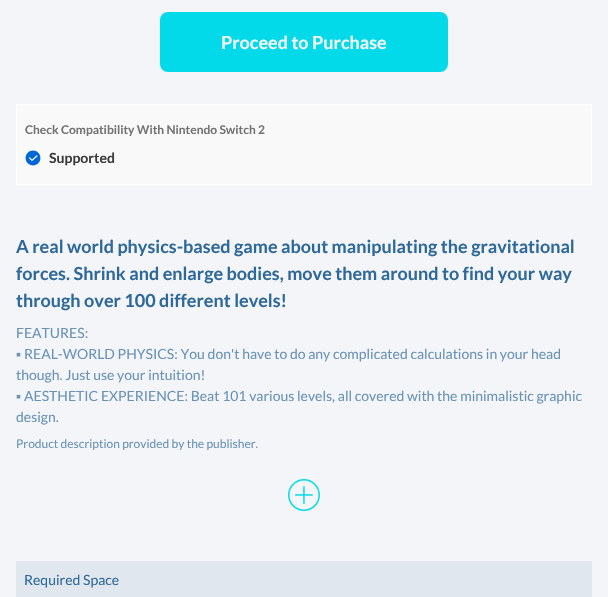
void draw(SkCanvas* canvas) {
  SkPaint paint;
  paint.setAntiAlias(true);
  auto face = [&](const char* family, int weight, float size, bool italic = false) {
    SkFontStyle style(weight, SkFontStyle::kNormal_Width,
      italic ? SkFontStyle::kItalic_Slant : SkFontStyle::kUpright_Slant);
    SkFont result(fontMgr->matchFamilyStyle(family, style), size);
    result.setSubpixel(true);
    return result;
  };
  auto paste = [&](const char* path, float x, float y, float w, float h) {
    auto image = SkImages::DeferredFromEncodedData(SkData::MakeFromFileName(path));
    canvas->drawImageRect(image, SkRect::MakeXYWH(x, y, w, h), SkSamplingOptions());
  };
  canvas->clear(0xfff4f5f9);
  paint.setColor(0xff02dae9);
  canvas->drawRoundRect(SkRect::MakeXYWH(160, 12, 288, 60), 8, 8, paint);
  paint.setColor(0xfff9f9f9);
  canvas->drawRect(SkRect::MakeXYWH(16.5f, 104.5f, 575, 80), paint);
  paint.setStroke(true);
  paint.setStrokeWidth(1);
  paint.setColor(0xffffffff);
  canvas->drawRect(SkRect::MakeXYWH(16.5f, 104.5f, 575, 80), paint);
  paste("img/1.png", 25, 150, 16, 16);
  paste("img/2.png", 288, 479, 32, 32);
  paint.setStroke(false);
  paint.setColor(0xffe0e7ef);
  canvas->drawRect(SkRect::MakeXYWH(16, 561, 576, 36), paint);
  auto f0 = face("Lato", 700, 18);
  paint.setColor(0xfff4f5f9);
  canvas->drawString("Proceed to Purchase", 221, 49, f0, paint);
  auto f1 = face("Lato", 700, 12);
  paint.setColor(0xff737373);
  canvas->drawString("Check Compatibility With Nintendo Switch 2", 25, 134, f1, paint);
  auto f2 = face("Lato", 700, 14);
  paint.setColor(0xff3c3c3c);
  canvas->drawString("Supported", 49, 163, f2, paint);
  paint.setColor(0xff2f6999);
  {
    const struct { const char* s; float x, y; } items[] = {
      {"A real world physics-based game about manipulating the gravitational", 16, 253},
      {"forces. Shrink and enlarge bodies, move them around to find your way", 16, 280},
      {"through over 100 different levels!", 16, 307},
    };
    for (auto [s, x, y] : items) {
      canvas->drawString(s, x, y, f0, paint);
    }
  }
  auto f3 = face("Lato", 400, 14);
  paint.setColor(0xff6a93b6);
  canvas->drawString("FEATURES:", 16, 338, f3, paint);
  auto f4 = face("Liberation Sans", 400, 14);
  canvas->drawString("▪", 16, 359, f4, paint);
  canvas->drawString("REAL-WORLD PHYSICS: You don't have to do any complicated calculations in your head", 24, 359, f3, paint);
  canvas->drawString("though. Just use your intuition!", 16, 380, f3, paint);
  canvas->drawString("▪", 16, 401, f4, paint);
  canvas->drawString("AESTHETIC EXPERIENCE: Beat 101 various levels, all covered with the minimalistic graphic", 24, 401, f3, paint);
  canvas->drawString("design.", 16, 422, f3, paint);
  auto f5 = face("Lato", 400, 12);
  canvas->drawString("Product description provided by the publisher.", 16, 448, f5, paint);
  paint.setColor(0xff2f6999);
  canvas->drawString("Required Space", 24, 585, f3, paint);
}
